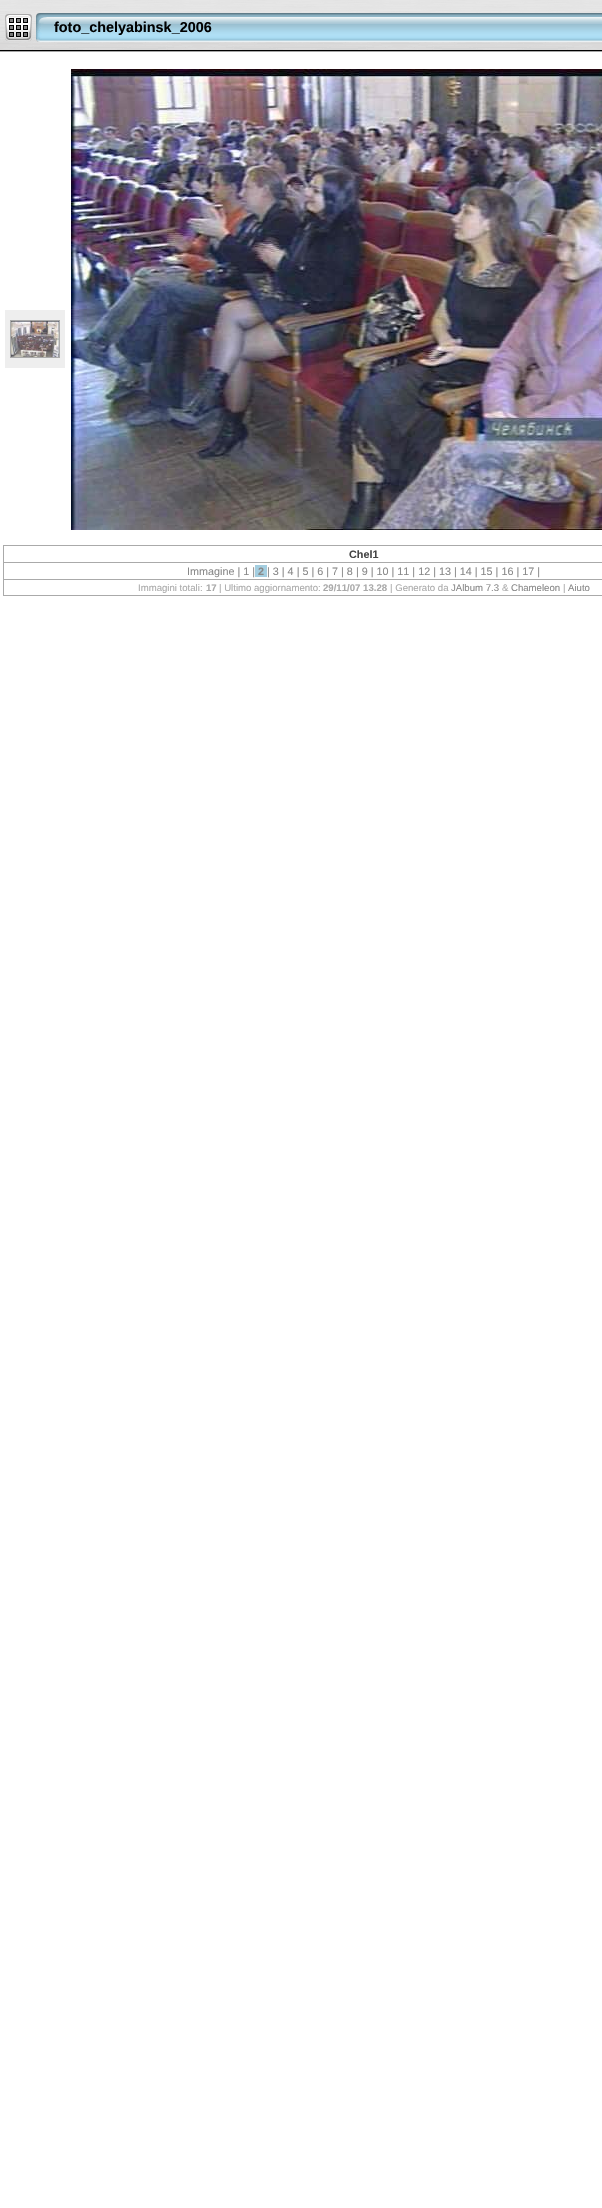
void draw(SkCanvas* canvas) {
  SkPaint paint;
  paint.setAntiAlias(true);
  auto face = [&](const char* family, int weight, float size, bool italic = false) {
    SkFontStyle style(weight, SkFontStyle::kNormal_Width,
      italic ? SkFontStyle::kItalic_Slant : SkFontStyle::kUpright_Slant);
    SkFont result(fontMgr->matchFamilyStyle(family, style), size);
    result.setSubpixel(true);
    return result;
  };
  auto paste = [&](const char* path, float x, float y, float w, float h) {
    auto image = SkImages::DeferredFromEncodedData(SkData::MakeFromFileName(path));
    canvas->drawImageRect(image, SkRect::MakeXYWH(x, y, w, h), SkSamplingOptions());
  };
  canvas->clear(0xffffffff);
  paste("img/1.png", 0, 0, 602, 52);
  paste("img/2.png", 5, 14, 27, 27);
  paste("img/3.png", 36, 13, 18, 29);
  paste("img/4.png", 54, 13, 548, 29);
  paint.setColor(0xffeeeeee);
  canvas->drawRect(SkRect::MakeXYWH(5, 310, 60, 58), paint);
  paint.setStroke(true);
  paint.setStrokeWidth(1);
  paint.setColor(0xffaaaaaa);
  canvas->drawRect(SkRect::MakeXYWH(10.5f, 320.5f, 49, 37), paint);
  paste("img/5.png", 11, 321, 48, 36);
  paste("img/6.png", 71, 69, 531, 461);
  paint.setStroke(false);
  {
    const struct { float x, y, w, h; SkColor color; } items[] = {
      {3, 545, 599, 1, 0xffaaaaaa},
      {3, 595, 599, 1, 0xffaaaaaa},
      {3, 545, 1, 51, 0xffaaaaaa},
      {3, 562, 599, 1, 0xffaaaaaa},
      {255, 565, 12, 12, 0xffa4cee0},
      {3, 579, 599, 1, 0xffaaaaaa},
    };
    for (auto [x, y, w, h, color] : items) {
      paint.setColor(color);
      canvas->drawRect(SkRect::MakeXYWH(x, y, w, h), paint);
    }
  }
  auto f0 = face("Liberation Sans", 700, 14.4f);
  paint.setColor(0xff000000);
  canvas->drawString("foto_chelyabinsk_2006", 54, 32, f0, paint);
  auto f1 = face("Liberation Sans", 700, 10.8f);
  paint.setColor(0xff444444);
  canvas->drawString("Chel1", 349, 558, f1, paint);
  auto f2 = face("Liberation Sans", 400, 10.8f);
  paint.setColor(0xff888888);
  canvas->drawString("Immagine | 1 |", 187, 575, f2, paint);
  canvas->drawString("2", 258, 575, f1, paint);
  canvas->drawString("| 3 | 4 | 5 | 6 | 7 | 8 | 9 | 10 | 11 | 12 | 13 | 14 | 15 | 16 | 17 |", 267, 575, f2, paint);
  auto f3 = face("Liberation Sans", 400, 9.6f);
  paint.setColor(0xffaaaaaa);
  canvas->drawString("Immagini totali:", 138, 591, f3, paint);
  auto f4 = face("Liberation Sans", 700, 9.6f);
  canvas->drawString("17", 206, 591, f4, paint);
  canvas->drawString("| Ultimo aggiornamento:", 219, 591, f3, paint);
  canvas->drawString("29/11/07 13.28", 323, 591, f4, paint);
  canvas->drawString("| Generato da", 390, 591, f3, paint);
  paint.setColor(0xff888888);
  canvas->drawString("JAlbum 7.3", 451, 591, f3, paint);
  paint.setColor(0xffaaaaaa);
  canvas->drawString("&", 502, 591, f3, paint);
  paint.setColor(0xff888888);
  canvas->drawString("Chameleon", 511, 591, f3, paint);
  paint.setColor(0xffaaaaaa);
  canvas->drawString("|", 563, 591, f3, paint);
  paint.setColor(0xff888888);
  canvas->drawString("Aiuto", 568, 591, f3, paint);
}
